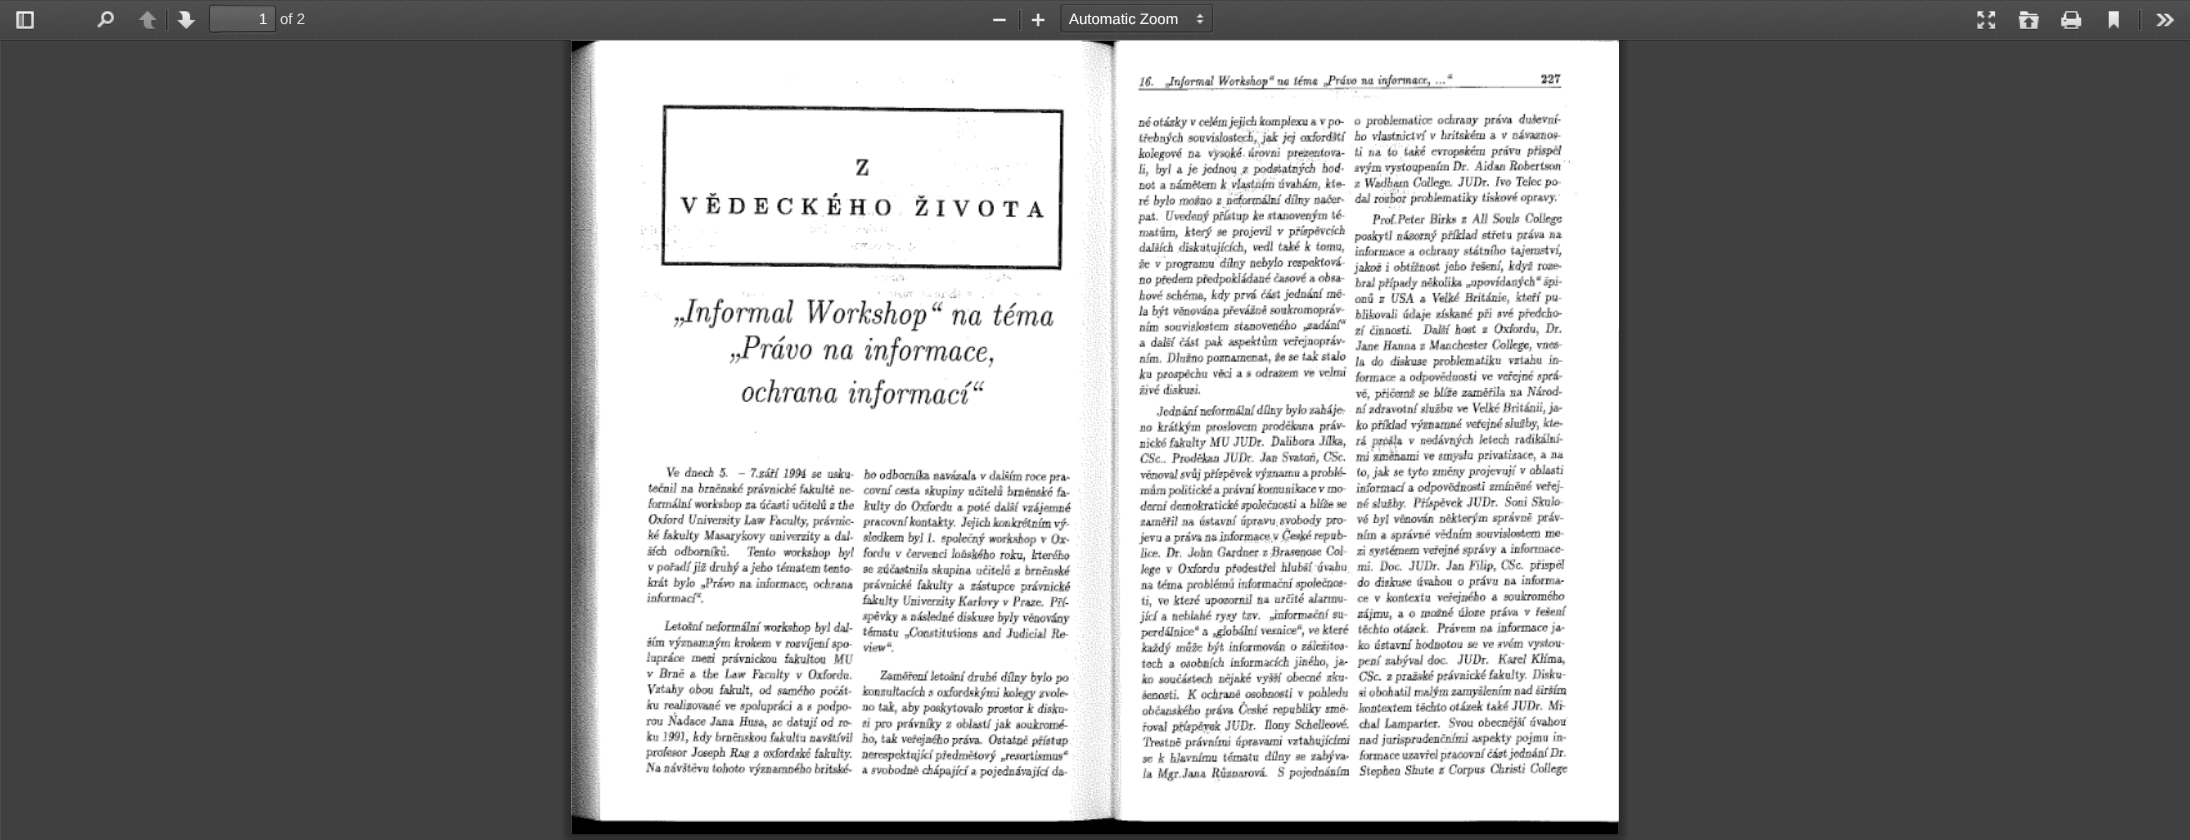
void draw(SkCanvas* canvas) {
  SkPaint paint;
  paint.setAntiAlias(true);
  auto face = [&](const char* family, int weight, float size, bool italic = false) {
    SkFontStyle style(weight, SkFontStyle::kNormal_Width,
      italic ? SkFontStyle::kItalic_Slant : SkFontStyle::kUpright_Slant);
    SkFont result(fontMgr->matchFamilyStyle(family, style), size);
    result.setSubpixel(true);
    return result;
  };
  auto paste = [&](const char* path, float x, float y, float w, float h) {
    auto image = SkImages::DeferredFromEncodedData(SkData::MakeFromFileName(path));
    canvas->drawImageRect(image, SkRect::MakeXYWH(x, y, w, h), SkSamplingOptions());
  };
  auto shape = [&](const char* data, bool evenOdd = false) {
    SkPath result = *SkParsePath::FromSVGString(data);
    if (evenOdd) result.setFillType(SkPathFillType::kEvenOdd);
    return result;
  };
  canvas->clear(0xff404040);
  paint.setColor(0xff4a4a4a);
  canvas->drawRect(SkRect::MakeXYWH(0, 40, 1, 800), paint);
  paint.setColor(0xffffffff);
  canvas->drawRect(SkRect::MakeXYWH(571, 40, 1048, 794), paint);
  paste("img/14.png", 562, 40, 1066, 800);
  paste("img/15.png", 571, 40, 1048, 795);
  canvas->save();
  canvas->clipRect(SkRect::MakeXYWH(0, 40, 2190, 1));
  paint.setColor(0x1a000000);
  paint.setMaskFilter(SkMaskFilter::MakeBlur(kNormal_SkBlurStyle, 0.5f));
  canvas->drawRect(SkRect::MakeXYWH(0, 1, 2190, 40), paint);
  paint.setMaskFilter(nullptr);
  canvas->restore();
  paint.setColor(0x26000000);
  canvas->drawRect(SkRect::MakeXYWH(0, 40, 2190, 1), paint);
  paste("img/1.png", 0, 0, 2190, 40);
  paint.setColor(0x0dffffff);
  canvas->drawRect(SkRect::MakeXYWH(0, 39, 2190, 1), paint);
  paint.setColor(0x26000000);
  canvas->drawRect(SkRect::MakeXYWH(0, 0, 2190, 1), paint);
  paste("img/2.png", 16, 11, 18, 19);
  paste("img/3.png", 97, 11, 17, 18);
  paste("img/4.png", 138, 11, 19, 19);
  paint.setStroke(true);
  paint.setStrokeWidth(1);
  paint.setColor(0x14ffffff);
  canvas->drawRect(SkRect::MakeXYWH(165.5f, 9.5f, 3, 21), paint);
  paint.setStroke(false);
  paint.setColor(0x80000000);
  canvas->drawRect(SkRect::MakeXYWH(166, 10, 1, 20), paint);
  paste("img/5.png", 177, 11, 19, 19);
  paint.setColor(0x0dffffff);
  canvas->drawPath(shape("M209 31C209 37 220 34 222 34H263C265 34 276 37 276 31C274 34 265 32 263 32H211Z"), paint);
  paint.setColor(0x17ffffff);
  canvas->drawRect(SkRect::MakeXYWH(210, 6, 65, 25), paint);
  {
    const SkColor colors[] = {0x0dffffff, 0x00ffffff};
    const float stops[] = {0, 1};
    const SkPoint ends[] = {{243, 6.2f}, {243, 31}};
    paint.setShader(SkGradientShader::MakeLinear(ends, colors, stops, 2, SkTileMode::kClamp));
    paint.setAlpha(255);
  }
  canvas->drawRect(SkRect::MakeXYWH(210, 6, 65, 14), paint);
  paint.setShader(nullptr);
  paint.setColor(0x0d000000);
  canvas->drawPath(shape("M211 8H274L275 9C275 3 271 6 264 6H222C214 6 210 3 210 9Z"), paint);
  paint.setStroke(true);
  paint.setStrokeWidth(1.2f);
  paint.setColor(0x52000000);
  canvas->drawPath(shape("M210 6C212.5 3.5 217.5 5.5 221.5 5.5L275 6"), paint);
  paint.setColor(0x61000000);
  canvas->drawPath(shape("M275 6L275.5 7.5V30L275 31.5"), paint);
  paint.setColor(0x6b000000);
  canvas->drawPath(shape("M275 31.5L221.5 32C217.5 32 212.5 34 210 31.5"), paint);
  paint.setColor(0x61000000);
  canvas->drawPath(shape("M210 31.5L209.5 30V7.5L210 6"), paint);
  paste("img/6.png", 993, 18, 13, 5);
  paint.setStrokeWidth(1);
  paint.setColor(0x14ffffff);
  canvas->drawRect(SkRect::MakeXYWH(1018.5f, 9.5f, 3, 21), paint);
  paint.setStroke(false);
  paint.setColor(0x80000000);
  canvas->drawRect(SkRect::MakeXYWH(1019, 10, 1, 20), paint);
  paste("img/7.png", 1031, 13, 14, 15);
  paint.setColor(0x0dffffff);
  canvas->drawPath(shape("M1061 31V32C1061 33 1062 34 1064 34H1212C1213 34 1214 33 1214 32V8C1214 7 1214 6 1213 6V22C1213 24 1215 32 1211 32H1063Z"), paint);
  paste("img/8.png", 1196, 13, 8, 11);
  canvas->drawPath(shape("M1063 6H1211C1213 8 1212 27 1212 31C1214 31 1213 21 1213 6L1212 5H1064Z"), paint);
  paint.setStroke(true);
  paint.setStrokeWidth(1.2f);
  paint.setColor(0x52000000);
  canvas->drawPath(shape("M1062 5L1063 4.5H1210.5L1212 5"), paint);
  paint.setColor(0x61000000);
  canvas->drawPath(shape("M1212 5L1212.5 6V30L1212 31.5"), paint);
  paint.setColor(0x6b000000);
  canvas->drawPath(shape("M1212 31.5L1210.5 32H1063L1062 31.5"), paint);
  paint.setColor(0x61000000);
  canvas->drawPath(shape("M1062 31.5L1061 30V6.5L1062 5"), paint);
  paste("img/9.png", 1977, 11, 19, 19);
  paste("img/10.png", 2018, 11, 21, 19);
  paste("img/11.png", 2061, 11, 21, 19);
  paste("img/12.png", 2108, 11, 11, 19);
  paint.setStrokeWidth(1);
  paint.setColor(0x14ffffff);
  canvas->drawRect(SkRect::MakeXYWH(2138.5f, 9.5f, 3, 21), paint);
  paint.setStroke(false);
  paint.setColor(0x80000000);
  canvas->drawRect(SkRect::MakeXYWH(2139, 10, 1, 20), paint);
  paste("img/13.png", 2156, 13, 19, 15);
  paint.setColor(0xff2f2f2f);
  canvas->drawRect(SkRect::MakeXYWH(569, 839, 1052, 1), paint);
  auto f0 = face("Liberation Sans", 400, 15);
  paint.setColor(0xfff2f2f2);
  canvas->drawString("1", 259, 24, f0, paint);
  paint.setColor(0xffd9d9d9);
  canvas->drawString("of 2", 280, 24, f0, paint);
  paint.setColor(0xfff2f2f2);
  canvas->drawString("Automatic Zoom", 1069, 24, f0, paint);
}
